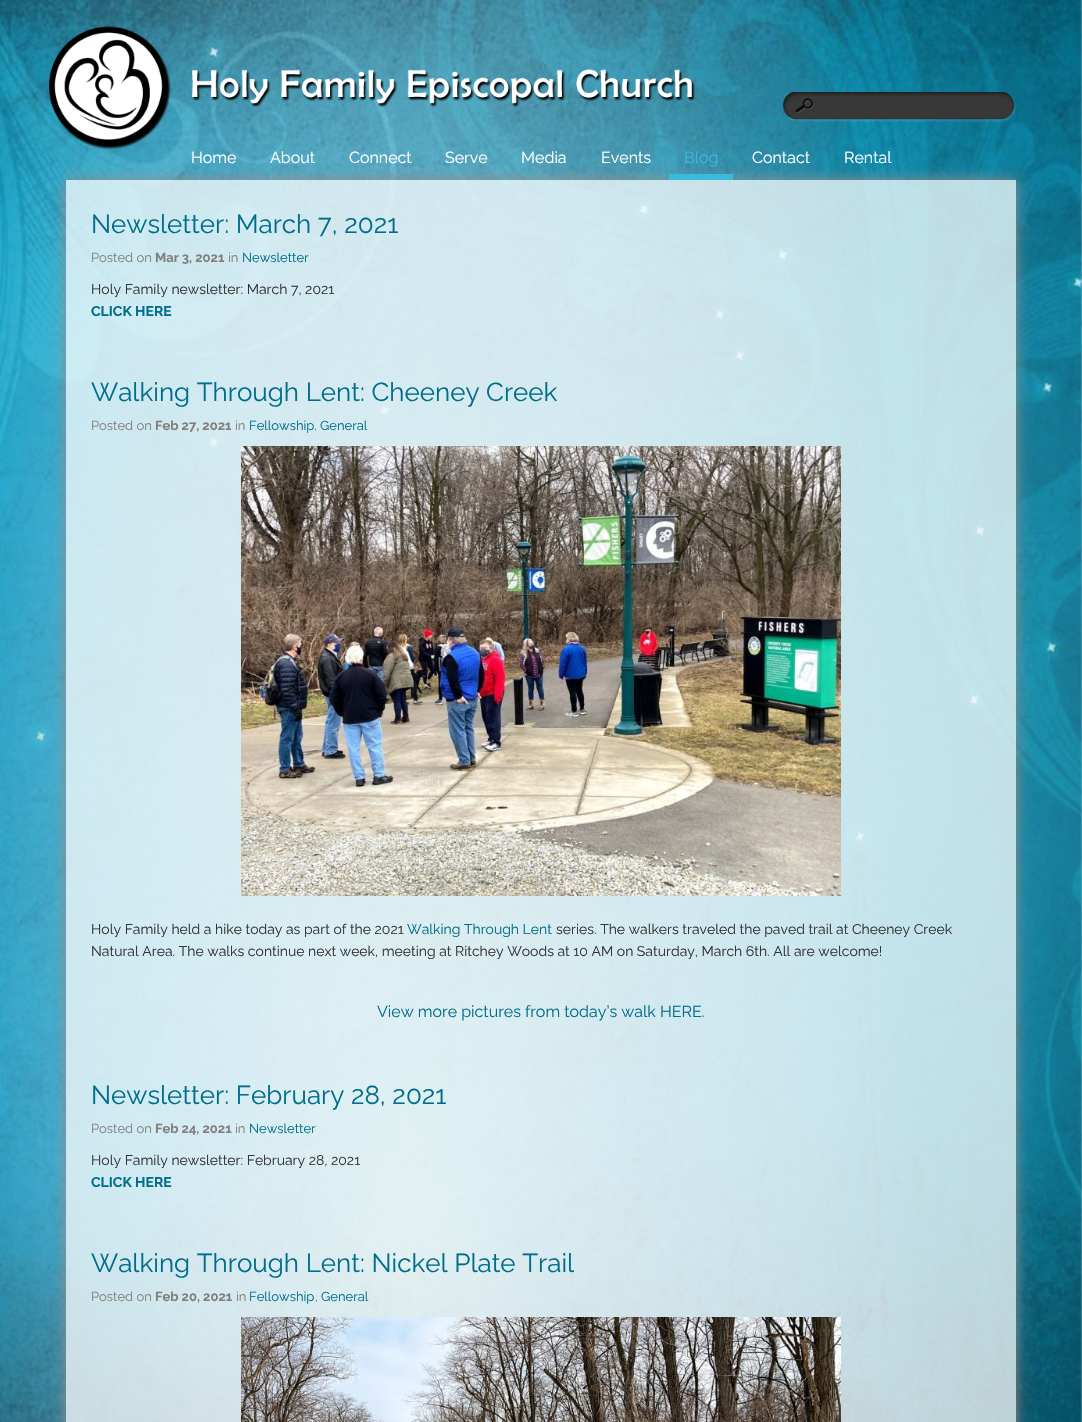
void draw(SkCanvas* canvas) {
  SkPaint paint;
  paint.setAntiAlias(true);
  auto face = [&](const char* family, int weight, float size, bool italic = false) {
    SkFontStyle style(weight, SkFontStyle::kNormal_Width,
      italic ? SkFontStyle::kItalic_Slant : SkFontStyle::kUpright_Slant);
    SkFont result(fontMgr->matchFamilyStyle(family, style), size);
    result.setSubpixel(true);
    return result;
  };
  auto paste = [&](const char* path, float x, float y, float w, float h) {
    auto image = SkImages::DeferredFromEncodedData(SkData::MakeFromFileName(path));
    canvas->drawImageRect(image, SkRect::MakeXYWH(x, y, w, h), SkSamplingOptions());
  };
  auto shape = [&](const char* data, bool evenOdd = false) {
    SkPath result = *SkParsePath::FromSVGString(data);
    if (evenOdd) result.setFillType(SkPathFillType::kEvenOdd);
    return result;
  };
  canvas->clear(0xffffffff);
  paste("img/1.png", 0, 0, 1082, 1422);
  paste("img/2.png", 0, 0, 1082, 1422);
  paste("img/3.png", 49, 26, 646, 124);
  paste("img/4.png", 783, 92, 233, 30);
  canvas->save();
  canvas->clipPath(shape("M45 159H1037V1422H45ZM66 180H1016V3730H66Z", true), true);
  paint.setColor(0xff918e8c);
  paint.setMaskFilter(SkMaskFilter::MakeBlur(kNormal_SkBlurStyle, 6.5f));
  canvas->drawRect(SkRect::MakeXYWH(66, 180, 950, 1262), paint);
  paint.setMaskFilter(nullptr);
  canvas->restore();
  paint.setColor(0xff3abadc);
  canvas->drawRect(SkRect::MakeXYWH(669, 174, 64, 6), paint);
  paint.setColor(0xbaffffff);
  canvas->drawRect(SkRect::MakeXYWH(66, 180, 950, 1242), paint);
  paste("img/5.png", 241, 446, 600, 450);
  paste("img/6.png", 241, 1317, 600, 105);
  auto f0 = face("Raleway", 400, 16);
  paint.setColor(0xffffffff);
  {
    const struct { const char* s; float x, y; } items[] = {
      {"Home", 191, 163},
      {"About", 270, 163},
      {"Connect", 349, 163},
      {"Serve", 445, 163},
      {"Media", 521, 163},
      {"Events", 601, 163},
    };
    for (auto [s, x, y] : items) {
      canvas->drawString(s, x, y, f0, paint);
    }
  }
  paint.setColor(0xff3abadc);
  canvas->drawString("Blog", 684, 163, f0, paint);
  paint.setColor(0xffffffff);
  canvas->drawString("Contact", 752, 163, f0, paint);
  canvas->drawString("Rental", 844, 163, f0, paint);
  auto f1 = face("Raleway", 400, 26);
  paint.setColor(0xff006e8b);
  canvas->drawString("Newsletter: March 7, 2021", 91, 233, f1, paint);
  auto f2 = face("Raleway", 400, 13);
  paint.setColor(0xff817f7b);
  canvas->drawString("Posted on", 91, 262, f2, paint);
  auto f3 = face("Raleway", 700, 13);
  canvas->drawString("Mar 3, 2021", 155, 262, f3, paint);
  canvas->drawString("in", 228, 262, f2, paint);
  paint.setColor(0xff006e8b);
  canvas->drawString("Newsletter", 242, 262, f2, paint);
  auto f4 = face("Raleway", 400, 14);
  paint.setColor(0xff333333);
  canvas->drawString("Holy Family newsletter: March 7, 2021", 91, 294, f4, paint);
  auto f5 = face("Raleway", 700, 14);
  paint.setColor(0xff006e8b);
  canvas->drawString("CLICK HERE", 91, 316, f5, paint);
  canvas->drawString("Walking Through Lent: Cheeney Creek", 91, 401, f1, paint);
  paint.setColor(0xff817f7b);
  canvas->drawString("Posted on", 91, 430, f2, paint);
  canvas->drawString("Feb 27, 2021", 155, 430, f3, paint);
  canvas->drawString("in", 235, 430, f2, paint);
  paint.setColor(0xff006e8b);
  canvas->drawString("Fellowship", 249, 430, f2, paint);
  paint.setColor(0xff817f7b);
  canvas->drawString(",", 314, 430, f2, paint);
  paint.setColor(0xff006e8b);
  canvas->drawString("General", 320, 430, f2, paint);
  paint.setColor(0xff333333);
  canvas->drawString("Holy Family held a hike today as part of the 2021", 91, 934, f4, paint);
  paint.setColor(0xff006e8b);
  canvas->drawString("Walking Through Lent", 407, 934, f4, paint);
  paint.setColor(0xff333333);
  canvas->drawString("series. The walkers traveled the paved trail at Cheeney Creek", 556, 934, f4, paint);
  canvas->drawString("Natural Area. The walks continue next week, meeting at Ritchey Woods at 10 AM on Saturday, March 6th. All are welcome!", 91, 956, f4, paint);
  paint.setColor(0xff006e8b);
  canvas->drawString("View more pictures from today’s walk HERE.", 377, 1017, f0, paint);
  canvas->drawString("Newsletter: February 28, 2021", 91, 1104, f1, paint);
  paint.setColor(0xff817f7b);
  canvas->drawString("Posted on", 91, 1133, f2, paint);
  canvas->drawString("Feb 24, 2021", 155, 1133, f3, paint);
  canvas->drawString("in", 235, 1133, f2, paint);
  paint.setColor(0xff006e8b);
  canvas->drawString("Newsletter", 249, 1133, f2, paint);
  paint.setColor(0xff333333);
  canvas->drawString("Holy Family newsletter: February 28, 2021", 91, 1165, f4, paint);
  paint.setColor(0xff006e8b);
  canvas->drawString("CLICK HERE", 91, 1187, f5, paint);
  canvas->drawString("Walking Through Lent: Nickel Plate Trail", 91, 1272, f1, paint);
  paint.setColor(0xff817f7b);
  canvas->drawString("Posted on", 91, 1301, f2, paint);
  canvas->drawString("Feb 20, 2021", 155, 1301, f3, paint);
  canvas->drawString("in", 236, 1301, f2, paint);
  paint.setColor(0xff006e8b);
  canvas->drawString("Fellowship", 249, 1301, f2, paint);
  paint.setColor(0xff817f7b);
  canvas->drawString(",", 315, 1301, f2, paint);
  paint.setColor(0xff006e8b);
  canvas->drawString("General", 321, 1301, f2, paint);
}
